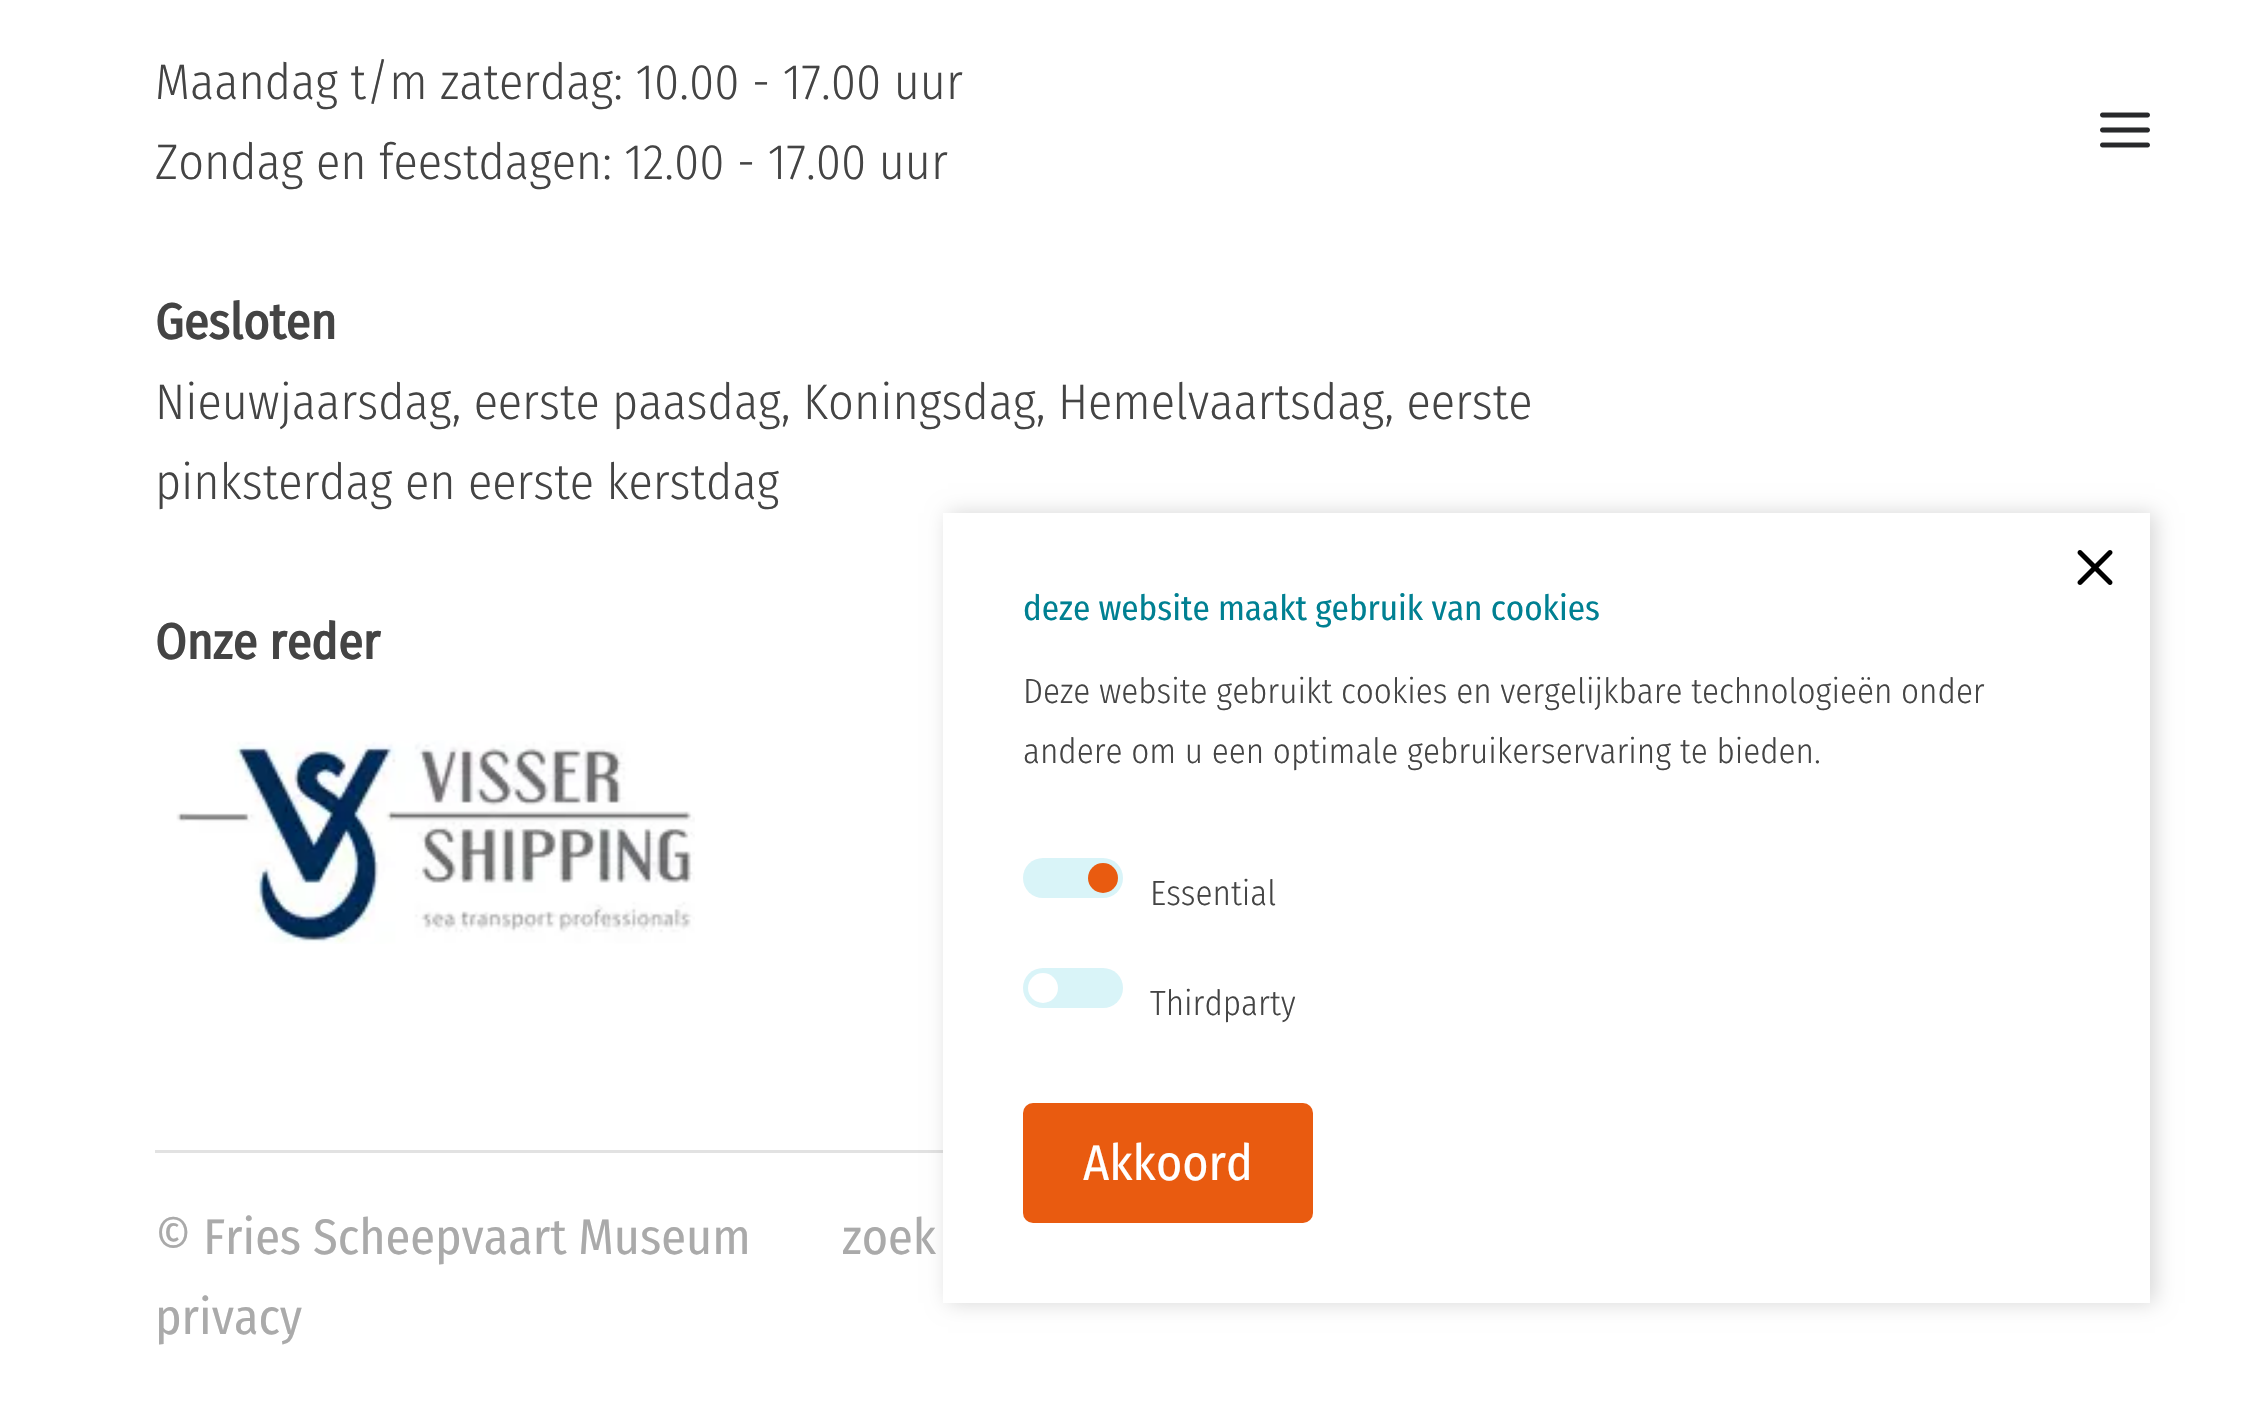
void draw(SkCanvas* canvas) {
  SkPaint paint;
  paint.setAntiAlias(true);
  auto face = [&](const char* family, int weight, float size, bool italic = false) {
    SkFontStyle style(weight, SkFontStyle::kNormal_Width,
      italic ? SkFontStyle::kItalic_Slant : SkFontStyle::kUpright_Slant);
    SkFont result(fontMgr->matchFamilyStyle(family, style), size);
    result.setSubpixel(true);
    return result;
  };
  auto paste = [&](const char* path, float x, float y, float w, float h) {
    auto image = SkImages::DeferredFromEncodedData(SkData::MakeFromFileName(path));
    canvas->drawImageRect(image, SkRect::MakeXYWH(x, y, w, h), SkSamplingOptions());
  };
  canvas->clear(0xffffffff);
  paste("img/1.png", 176, 740, 519, 204);
  paint.setColor(0xffe2e2e2);
  canvas->drawRect(SkRect::MakeXYWH(155, 1150, 788, 3), paint);
  paste("img/2.png", 2100, 112, 50, 36);
  paint.setColor(0x29000000);
  paint.setMaskFilter(SkMaskFilter::MakeBlur(kNormal_SkBlurStyle, 10));
  canvas->drawRect(SkRect::MakeXYWH(948, 513, 1207, 790), paint);
  paint.setMaskFilter(nullptr);
  paint.setColor(0xffffffff);
  canvas->drawRect(SkRect::MakeXYWH(943, 513, 1207, 790), paint);
  paste("img/3.png", 2077, 550, 36, 35);
  paint.setColor(0xffd9f4f8);
  canvas->drawRoundRect(SkRect::MakeXYWH(1023, 858, 100, 40), 20, 20, paint);
  paint.setColor(0xffe95b10);
  canvas->drawCircle(1103, 878, 15, paint);
  paint.setColor(0xffd9f4f8);
  canvas->drawRoundRect(SkRect::MakeXYWH(1023, 968, 100, 40), 20, 20, paint);
  paint.setColor(0xffffffff);
  canvas->drawCircle(1043, 988, 15, paint);
  paint.setColor(0xffe95b10);
  canvas->drawRoundRect(SkRect::MakeXYWH(1023, 1103, 290, 120), 10, 10, paint);
  auto f0 = face("Fira Sans Condensed", 300, 50);
  paint.setColor(0xff444444);
  canvas->drawString("Maandag t/m zaterdag: 10.00 - 17.00 uur", 155, 99, f0, paint);
  canvas->drawString("Zondag en feestdagen: 12.00 - 17.00 uur", 155, 179, f0, paint);
  auto f1 = face("Fira Sans Condensed", 700, 50);
  canvas->drawString("Gesloten", 155, 339, f1, paint);
  canvas->drawString("Nieuwjaarsdag, eerste paasdag, Koningsdag, Hemelvaartsdag, eerste", 155, 419, f0, paint);
  canvas->drawString("pinksterdag en eerste kerstdag", 155, 499, f0, paint);
  canvas->drawString("Onze reder", 155, 659, f1, paint);
  auto f2 = face("Fira Sans Condensed", 400, 50);
  paint.setColor(0xffaaaaaa);
  {
    const struct { const char* s; float x, y; } items[] = {
      {"© Fries Scheepvaart Museum", 155, 1254},
      {"zoek", 842, 1254},
      {"privacy", 155, 1334},
    };
    for (auto [s, x, y] : items) {
      canvas->drawString(s, x, y, f2, paint);
    }
  }
  auto f3 = face("Fira Sans Condensed", 400, 35);
  paint.setColor(0xff008092);
  canvas->drawString("deze website maakt gebruik van cookies", 1023, 620, f3, paint);
  auto f4 = face("Fira Sans Condensed", 300, 35);
  paint.setColor(0xff444444);
  {
    const struct { const char* s; float x, y; } items[] = {
      {"Deze website gebruikt cookies en vergelijkbare technologieën onder", 1023, 703},
      {"andere om u een optimale gebruikerservaring te bieden.", 1023, 763},
      {"Essential", 1150, 905},
      {"Thirdparty", 1150, 1015},
    };
    for (auto [s, x, y] : items) {
      canvas->drawString(s, x, y, f4, paint);
    }
  }
  paint.setColor(0xffffffff);
  canvas->drawString("Akkoord", 1083, 1180, f2, paint);
}
